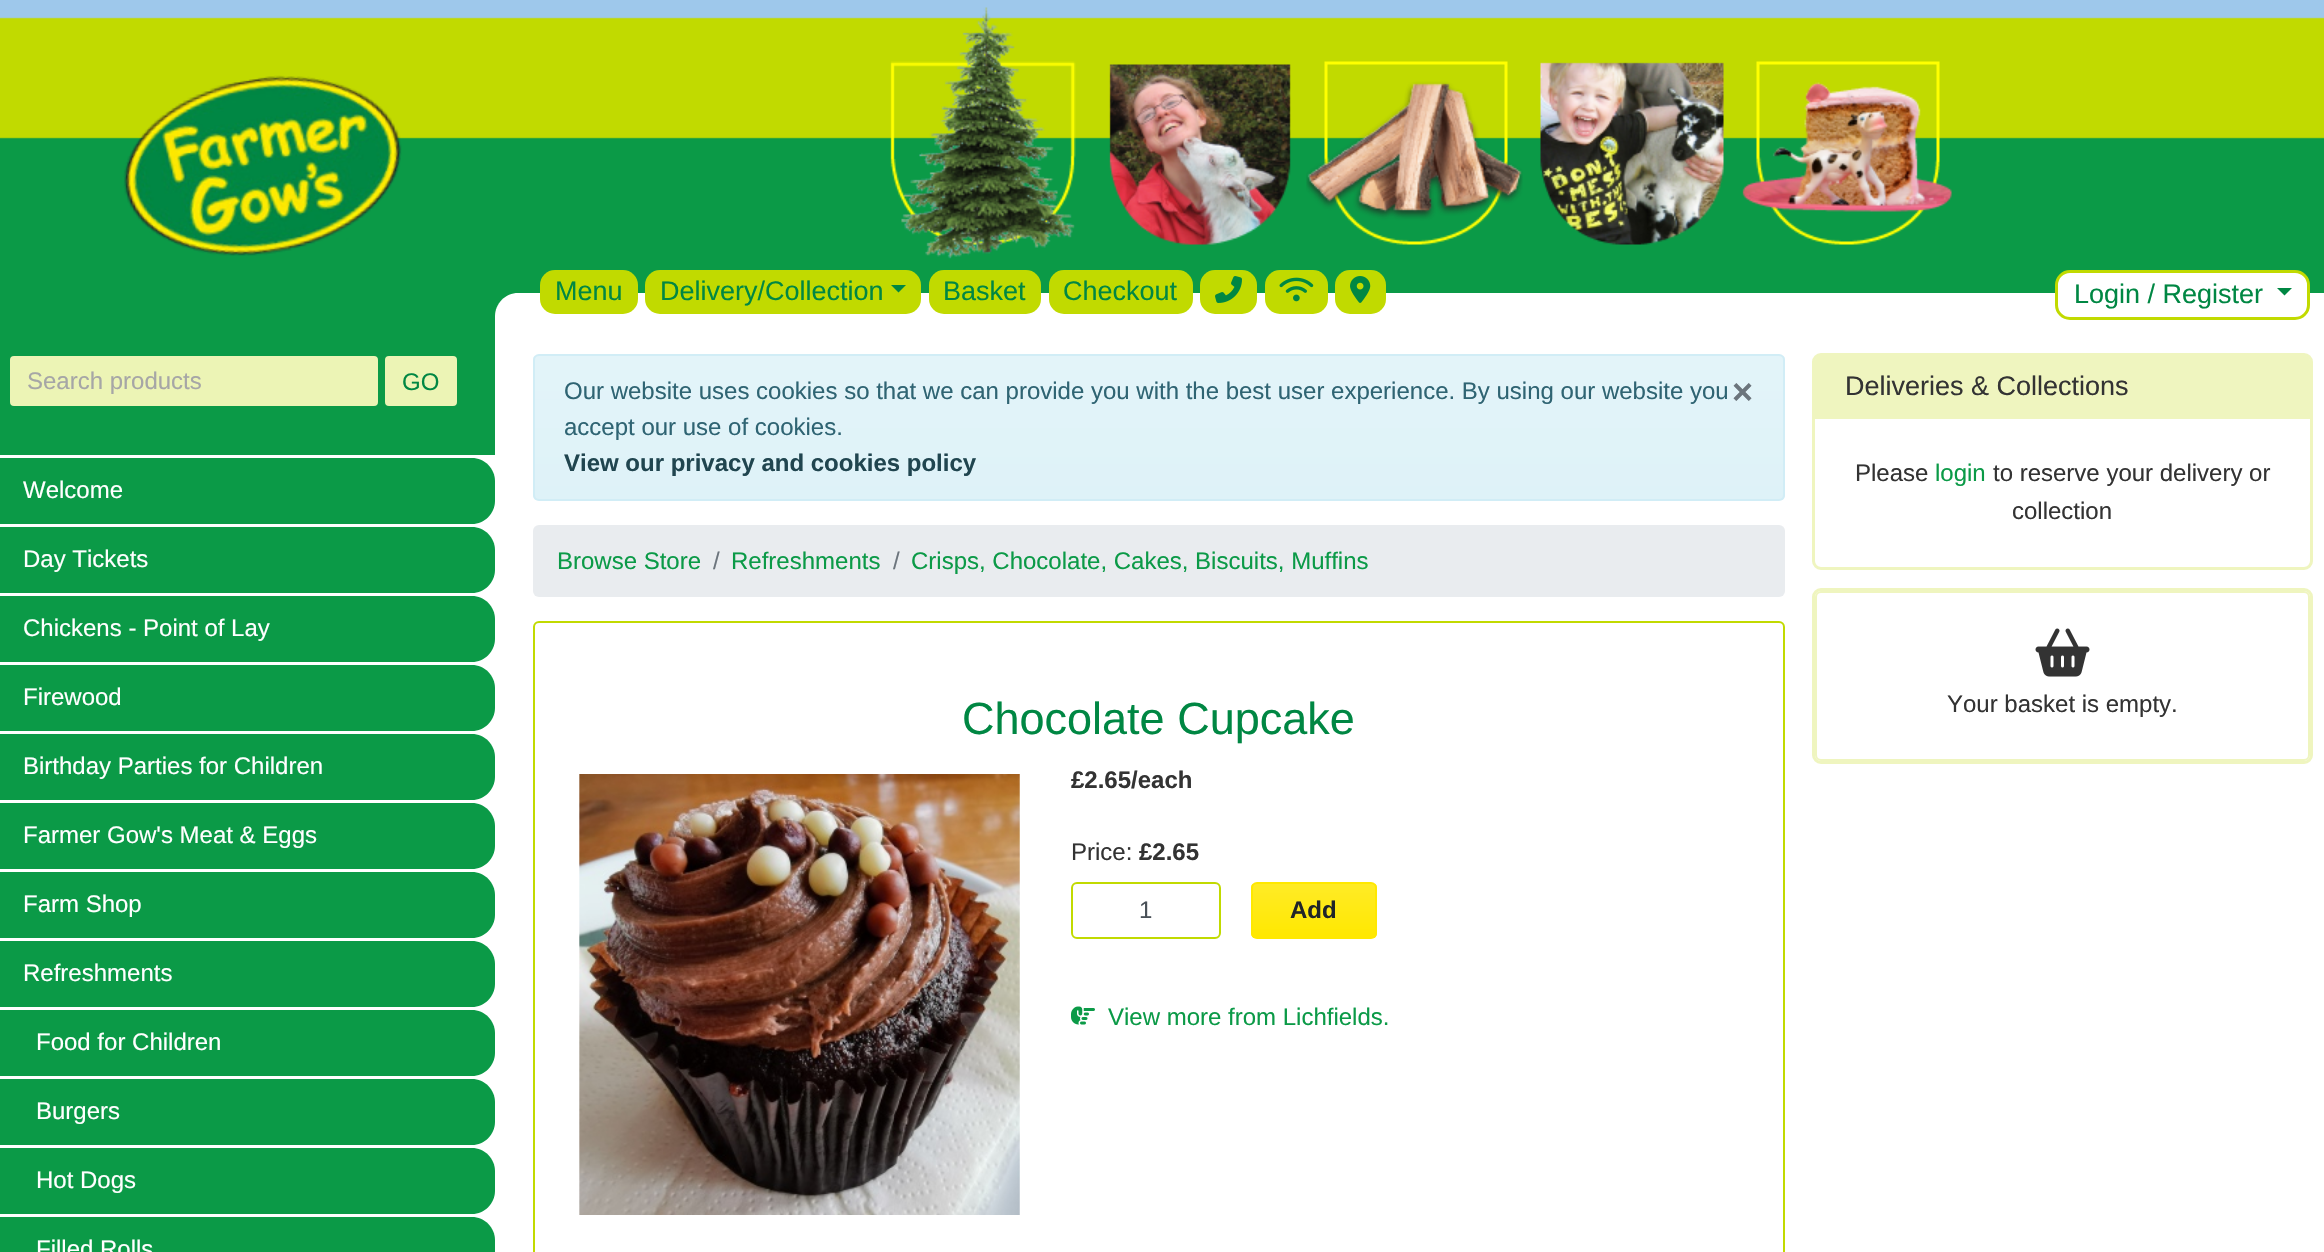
void draw(SkCanvas* canvas) {
  SkPaint paint;
  paint.setAntiAlias(true);
  auto face = [&](const char* family, int weight, float size, bool italic = false) {
    SkFontStyle style(weight, SkFontStyle::kNormal_Width,
      italic ? SkFontStyle::kItalic_Slant : SkFontStyle::kUpright_Slant);
    SkFont result(fontMgr->matchFamilyStyle(family, style), size);
    result.setSubpixel(true);
    return result;
  };
  auto paste = [&](const char* path, float x, float y, float w, float h) {
    auto image = SkImages::DeferredFromEncodedData(SkData::MakeFromFileName(path));
    canvas->drawImageRect(image, SkRect::MakeXYWH(x, y, w, h), SkSamplingOptions());
  };
  auto shape = [&](const char* data, bool evenOdd = false) {
    SkPath result = *SkParsePath::FromSVGString(data);
    if (evenOdd) result.setFillType(SkPathFillType::kEvenOdd);
    return result;
  };
  canvas->clear(0xffffffff);
  paint.setColor(0xff0b9a47);
  canvas->drawRect(SkRect::MakeXYWH(0, 139, 2324, 193), paint);
  paste("img/1.png", 0, 0, 2324, 139);
  paste("img/2.png", 123, 75, 279, 181);
  paint.setColor(0xffffffff);
  canvas->drawPath(shape("M518 293H525V338H495V316C495 303.5 505.5 293 518 293Z"), paint);
  paste("img/3.png", 890, 7, 1062, 252);
  canvas->drawRect(SkRect::MakeXYWH(525, 293, 1799, 39), paint);
  paint.setColor(0xffc1da00);
  canvas->drawRoundRect(SkRect::MakeXYWH(540, 270, 98, 44), 15, 15, paint);
  canvas->drawRoundRect(SkRect::MakeXYWH(645, 270, 276, 44), 15, 15, paint);
  paint.setColor(0xff008743);
  canvas->drawPath(shape("M891 285H906L898.5 292.5Z"), paint);
  paint.setColor(0xffc1da00);
  canvas->drawRoundRect(SkRect::MakeXYWH(929, 270, 112, 44), 15, 15, paint);
  canvas->drawRoundRect(SkRect::MakeXYWH(1049, 270, 144, 44), 15, 15, paint);
  canvas->drawRoundRect(SkRect::MakeXYWH(1200, 270, 57, 44), 15, 15, paint);
  paste("img/4.png", 1215, 276, 27, 27);
  canvas->drawRoundRect(SkRect::MakeXYWH(1265, 270, 63, 44), 15, 15, paint);
  paste("img/5.png", 1279, 277, 35, 25);
  canvas->drawRoundRect(SkRect::MakeXYWH(1335, 270, 51, 44), 15, 15, paint);
  paste("img/6.png", 1350, 276, 21, 27);
  paint.setColor(0xffffffff);
  canvas->drawRoundRect(SkRect::MakeXYWH(2056.5f, 271.5f, 252, 47), 13.5f, 13.5f, paint);
  paint.setStroke(true);
  paint.setStrokeWidth(3);
  paint.setColor(0xffc1da00);
  canvas->drawRoundRect(SkRect::MakeXYWH(2056.5f, 271.5f, 252, 47), 13.5f, 13.5f, paint);
  paint.setStroke(false);
  paint.setColor(0xff008743);
  canvas->drawPath(shape("M2277 288H2292L2284.5 295.5Z"), paint);
  paint.setColor(0xff0b9a47);
  canvas->drawRect(SkRect::MakeXYWH(0, 332, 495, 123), paint);
  paint.setColor(0xffecf4b5);
  canvas->drawRoundRect(SkRect::MakeXYWH(9, 355, 370, 52), 5, 5, paint);
  paint.setStroke(true);
  paint.setStrokeWidth(2);
  paint.setColor(0xff0b9a47);
  canvas->drawRoundRect(SkRect::MakeXYWH(9, 355, 370, 52), 5, 5, paint);
  paint.setStroke(false);
  paint.setColor(0xffecf4b5);
  canvas->drawRoundRect(SkRect::MakeXYWH(384, 355, 74, 52), 5, 5, paint);
  paint.setStroke(true);
  paint.setColor(0xff0b9a47);
  canvas->drawRoundRect(SkRect::MakeXYWH(384, 355, 74, 52), 5, 5, paint);
  paint.setStroke(false);
  canvas->drawPath(shape("M0 458H472C484.5 458 495 468.5 495 481V501C495 513.5 484.5 524 472 524H0Z"), paint);
  canvas->drawPath(shape("M0 527H472C484.5 527 495 537.5 495 550V570C495 582.5 484.5 593 472 593H0Z"), paint);
  canvas->drawPath(shape("M0 596H472C484.5 596 495 606.5 495 619V639C495 651.5 484.5 662 472 662H0Z"), paint);
  canvas->drawPath(shape("M0 665H472C484.5 665 495 675.5 495 688V708C495 720.5 484.5 731 472 731H0Z"), paint);
  canvas->drawPath(shape("M0 734H472C484.5 734 495 744.5 495 757V777C495 789.5 484.5 800 472 800H0Z"), paint);
  canvas->drawPath(shape("M0 803H472C484.5 803 495 813.5 495 826V846C495 858.5 484.5 869 472 869H0Z"), paint);
  canvas->drawPath(shape("M0 872H472C484.5 872 495 882.5 495 895V915C495 927.5 484.5 938 472 938H0Z"), paint);
  canvas->drawPath(shape("M0 941H472C484.5 941 495 951.5 495 964V984C495 996.5 484.5 1007 472 1007H0Z"), paint);
  canvas->drawPath(shape("M0 1010H472C484.5 1010 495 1020.5 495 1033V1053C495 1065.5 484.5 1076 472 1076H0Z"), paint);
  canvas->drawPath(shape("M0 1079H472C484.5 1079 495 1089.5 495 1102V1122C495 1134.5 484.5 1145 472 1145H0Z"), paint);
  canvas->drawPath(shape("M0 1148H472C484.5 1148 495 1158.5 495 1171V1191C495 1203.5 484.5 1214 472 1214H0Z"), paint);
  canvas->drawPath(shape("M0 1217H472C484.5 1217 495 1227.5 495 1240V1252C495 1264.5 484.5 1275 472 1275H0Z"), paint);
  canvas->save();
  canvas->clipPath(shape("M539 354H1779C1782.5 354 1785 356.5 1785 360V495C1785 498.5 1782.5 501 1779 501H539C535.5 501 533 498.5 533 495V360C533 356.5 535.5 354 539 354Z"), true);
  {
    const SkColor colors[] = {0xffe3f4f9, 0xffdef2f8};
    const float stops[] = {0, 1};
    const SkPoint ends[] = {{1159, 355}, {1159, 500}};
    paint.setShader(SkGradientShader::MakeLinear(ends, colors, stops, 2, SkTileMode::kClamp));
    paint.setAlpha(255);
  }
  canvas->drawRect(SkRect::MakeXYWH(533, 356, 1252, 144), paint);
  canvas->restore();
  paint.setStroke(true);
  paint.setShader(nullptr);
  paint.setColor(0xffd1edf6);
  canvas->drawRoundRect(SkRect::MakeXYWH(534, 355, 1250, 145), 5, 5, paint);
  paint.setStroke(false);
  paint.setColor(0xffe9ecef);
  canvas->drawRoundRect(SkRect::MakeXYWH(533, 525, 1252, 72), 6, 6, paint);
  paint.setStroke(true);
  paint.setColor(0xffc1da00);
  canvas->drawRoundRect(SkRect::MakeXYWH(534, 622, 1250, 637), 5, 5, paint);
  paste("img/7.png", 579, 774, 441, 441);
  canvas->drawRoundRect(SkRect::MakeXYWH(1072, 883, 148, 55), 5, 5, paint);
  canvas->save();
  canvas->clipPath(shape("M1257 882H1371C1374.5 882 1377 884.5 1377 888V933C1377 936.5 1374.5 939 1371 939H1257C1253.5 939 1251 936.5 1251 933V888C1251 884.5 1253.5 882 1257 882Z"), true);
  paint.setStroke(false);
  {
    const SkColor colors[] = {0xffffeb26, 0xffffe800};
    const float stops[] = {0, 1};
    const SkPoint ends[] = {{1314, 884}, {1314, 938}};
    paint.setShader(SkGradientShader::MakeLinear(ends, colors, stops, 2, SkTileMode::kClamp));
    paint.setAlpha(255);
  }
  canvas->drawRect(SkRect::MakeXYWH(1251, 884, 126, 54), paint);
  canvas->restore();
  paint.setStroke(true);
  paint.setShader(nullptr);
  paint.setColor(0xffffe800);
  canvas->drawRoundRect(SkRect::MakeXYWH(1252, 883, 124, 55), 5, 5, paint);
  paste("img/8.png", 1071, 1006, 24, 19);
  paint.setStroke(false);
  paint.setColor(0xffeff5bf);
  canvas->drawPath(shape("M1820 356H2305C2308 356 2310 358 2310 361V419H1815V361C1815 358 1817 356 1820 356Z"), paint);
  paint.setStroke(true);
  paint.setStrokeWidth(3);
  canvas->drawRoundRect(SkRect::MakeXYWH(1813.5f, 354.5f, 498, 214), 7.5f, 7.5f, paint);
  paint.setStrokeWidth(2);
  canvas->drawRoundRect(SkRect::MakeXYWH(1816, 592, 493, 168), 5, 5, paint);
  paint.setStrokeWidth(3);
  canvas->drawRoundRect(SkRect::MakeXYWH(1813.5f, 589.5f, 498, 173), 7.5f, 7.5f, paint);
  paste("img/9.png", 2035, 628, 55, 49);
  auto f0 = face("Liberation Sans", 400, 27);
  paint.setStroke(false);
  paint.setColor(0xff008743);
  {
    const struct { const char* s; float x, y; } items[] = {
      {"Menu", 555, 300},
      {"Delivery/Collection", 660, 300},
      {"Basket", 943, 300},
      {"Checkout", 1063, 300},
      {"Login / Register", 2074, 303},
    };
    for (auto [s, x, y] : items) {
      canvas->drawString(s, x, y, f0, paint);
    }
  }
  auto f1 = face("Liberation Sans", 400, 24);
  paint.setColor(0xffa6a6a6);
  canvas->drawString("Search products", 27, 389, f1, paint);
  paint.setColor(0xff008743);
  canvas->drawString("GO", 402, 390, f1, paint);
  paint.setColor(0xffffffff);
  {
    const struct { const char* s; float x, y; } items[] = {
      {"Welcome", 23, 498},
      {"Day Tickets", 23, 567},
      {"Chickens - Point of Lay", 23, 636},
      {"Firewood", 23, 705},
      {"Birthday Parties for Children", 23, 774},
      {"Farmer Gow's Meat & Eggs", 23, 843},
      {"Farm Shop", 23, 912},
      {"Refreshments", 23, 981},
      {"Food for Children", 36, 1050},
      {"Burgers", 36, 1119},
      {"Hot Dogs", 36, 1188},
      {"Filled Rolls", 36, 1257},
    };
    for (auto [s, x, y] : items) {
      canvas->drawString(s, x, y, f1, paint);
    }
  }
  paint.setColor(0xff2f6473);
  canvas->drawString("Our website uses cookies so that we can provide you with the best user experience. By using our website you", 564, 399, f1, paint);
  auto f2 = face("Liberation Sans", 700, 36);
  paint.setColor(0xff6c757d);
  canvas->drawString("×", 1732, 404, f2, paint);
  paint.setColor(0xff2f6473);
  canvas->drawString("accept our use of cookies.", 564, 435, f1, paint);
  auto f3 = face("Liberation Sans", 700, 24);
  paint.setColor(0xff20454f);
  canvas->drawString("View our privacy and cookies policy", 564, 471, f3, paint);
  paint.setColor(0xff0b9a47);
  canvas->drawString("Browse Store", 557, 569, f1, paint);
  paint.setColor(0xff6c757d);
  canvas->drawString("/", 713, 569, f1, paint);
  paint.setColor(0xff0b9a47);
  canvas->drawString("Refreshments", 731, 569, f1, paint);
  paint.setColor(0xff6c757d);
  canvas->drawString("/", 893, 569, f1, paint);
  paint.setColor(0xff0b9a47);
  canvas->drawString("Crisps, Chocolate, Cakes, Biscuits, Muffins", 911, 569, f1, paint);
  auto f4 = face("Liberation Sans", 400, 45);
  paint.setColor(0xff008743);
  canvas->drawString("Chocolate Cupcake", 962, 734, f4, paint);
  paint.setColor(0xff333333);
  canvas->drawString("£2.65/each", 1071, 788, f3, paint);
  canvas->drawString("Price:", 1071, 860, f1, paint);
  canvas->drawString("£2.65", 1139, 860, f3, paint);
  paint.setColor(0xff495057);
  canvas->drawString("1", 1139, 918, f1, paint);
  paint.setColor(0xff212529);
  canvas->drawString("Add", 1290, 918, f3, paint);
  paint.setColor(0xff0b9a47);
  canvas->drawString("View more from Lichfields.", 1108, 1025, f1, paint);
  paint.setColor(0xff333333);
  canvas->drawString("Deliveries & Collections", 1845, 395, f0, paint);
  canvas->drawString("Please", 1855, 481, f1, paint);
  paint.setColor(0xff0b9a47);
  canvas->drawString("login", 1935, 481, f1, paint);
  paint.setColor(0xff333333);
  {
    const struct { const char* s; float x, y; } items[] = {
      {"to reserve your delivery or", 1993, 481},
      {"collection", 2012, 519},
      {"Your basket is empty.", 1947, 712},
    };
    for (auto [s, x, y] : items) {
      canvas->drawString(s, x, y, f1, paint);
    }
  }
}
